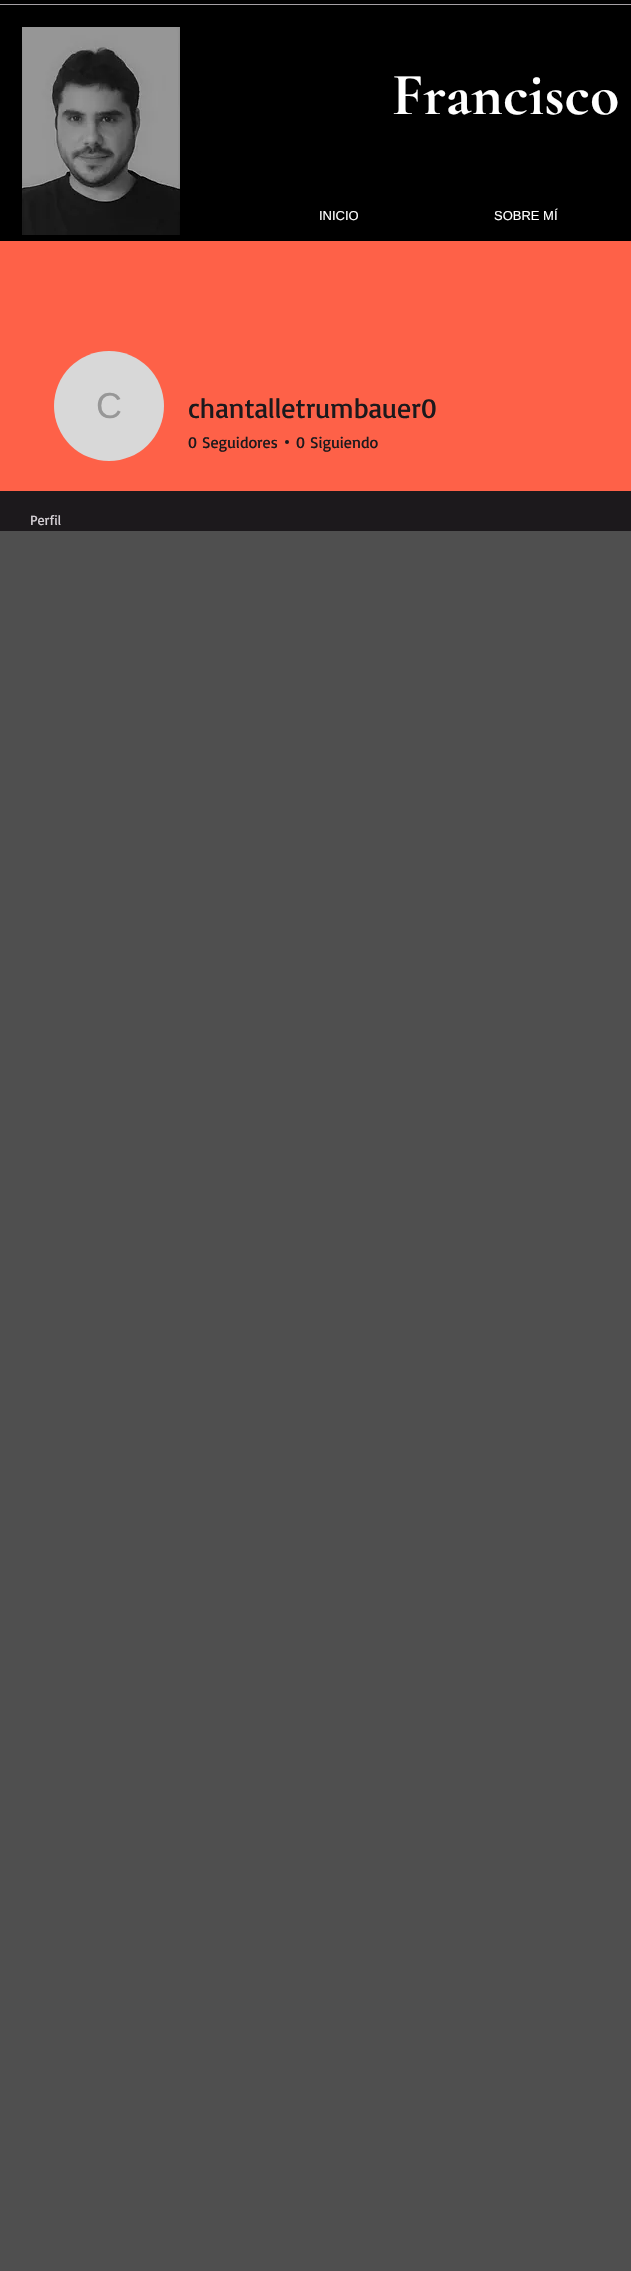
void draw(SkCanvas* canvas) {
  SkPaint paint;
  paint.setAntiAlias(true);
  auto face = [&](const char* family, int weight, float size, bool italic = false) {
    SkFontStyle style(weight, SkFontStyle::kNormal_Width,
      italic ? SkFontStyle::kItalic_Slant : SkFontStyle::kUpright_Slant);
    SkFont result(fontMgr->matchFamilyStyle(family, style), size);
    result.setSubpixel(true);
    return result;
  };
  auto paste = [&](const char* path, float x, float y, float w, float h) {
    auto image = SkImages::DeferredFromEncodedData(SkData::MakeFromFileName(path));
    canvas->drawImageRect(image, SkRect::MakeXYWH(x, y, w, h), SkSamplingOptions());
  };
  canvas->clear(0xff4f4f4f);
  paint.setColor(0xff000000);
  canvas->drawRect(SkRect::MakeXYWH(0, 0, 631, 241), paint);
  paint.setColor(0xffa5a0a5);
  canvas->drawRect(SkRect::MakeXYWH(0, 4, 631, 1), paint);
  paste("img/1.png", 22, 27, 158, 208);
  paint.setColor(0xfffe6148);
  canvas->drawRect(SkRect::MakeXYWH(0, 241, 631, 250), paint);
  paint.setColor(0xffd8d8d8);
  canvas->drawCircle(109, 406, 55, paint);
  paint.setColor(0xff1c191c);
  canvas->drawCircle(287, 442, 2, paint);
  canvas->drawRect(SkRect::MakeXYWH(0, 491, 631, 40), paint);
  auto f0 = face("Cormorant Garamond", 700, 60);
  paint.setColor(0xffffffff);
  canvas->drawString("Francisco", 392, 114, f0, paint);
  auto f1 = face("Liberation Sans", 400, 13);
  canvas->drawString("INICIO", 319, 220, f1, paint);
  canvas->drawString("SOBRE MÍ", 494, 220, f1, paint);
  auto f2 = face("Liberation Sans", 400, 36);
  paint.setColor(0xff979797);
  canvas->drawString("C", 96, 418, f2, paint);
  auto f3 = face("Basic", 400, 28);
  paint.setColor(0xff1c191c);
  canvas->drawString("chantalletrumbauer0", 188, 418, f3, paint);
  auto f4 = face("Basic", 400, 16);
  {
    const struct { const char* s; float x, y; } items[] = {
      {"0", 188, 448},
      {"Seguidores", 202, 448},
      {"0", 296, 448},
      {"Siguiendo", 310, 448},
    };
    for (auto [s, x, y] : items) {
      canvas->drawString(s, x, y, f4, paint);
    }
  }
  auto f5 = face("Basic", 400, 14);
  paint.setColor(0xffd2cdd2);
  canvas->drawString("Perfil", 30, 525, f5, paint);
}
